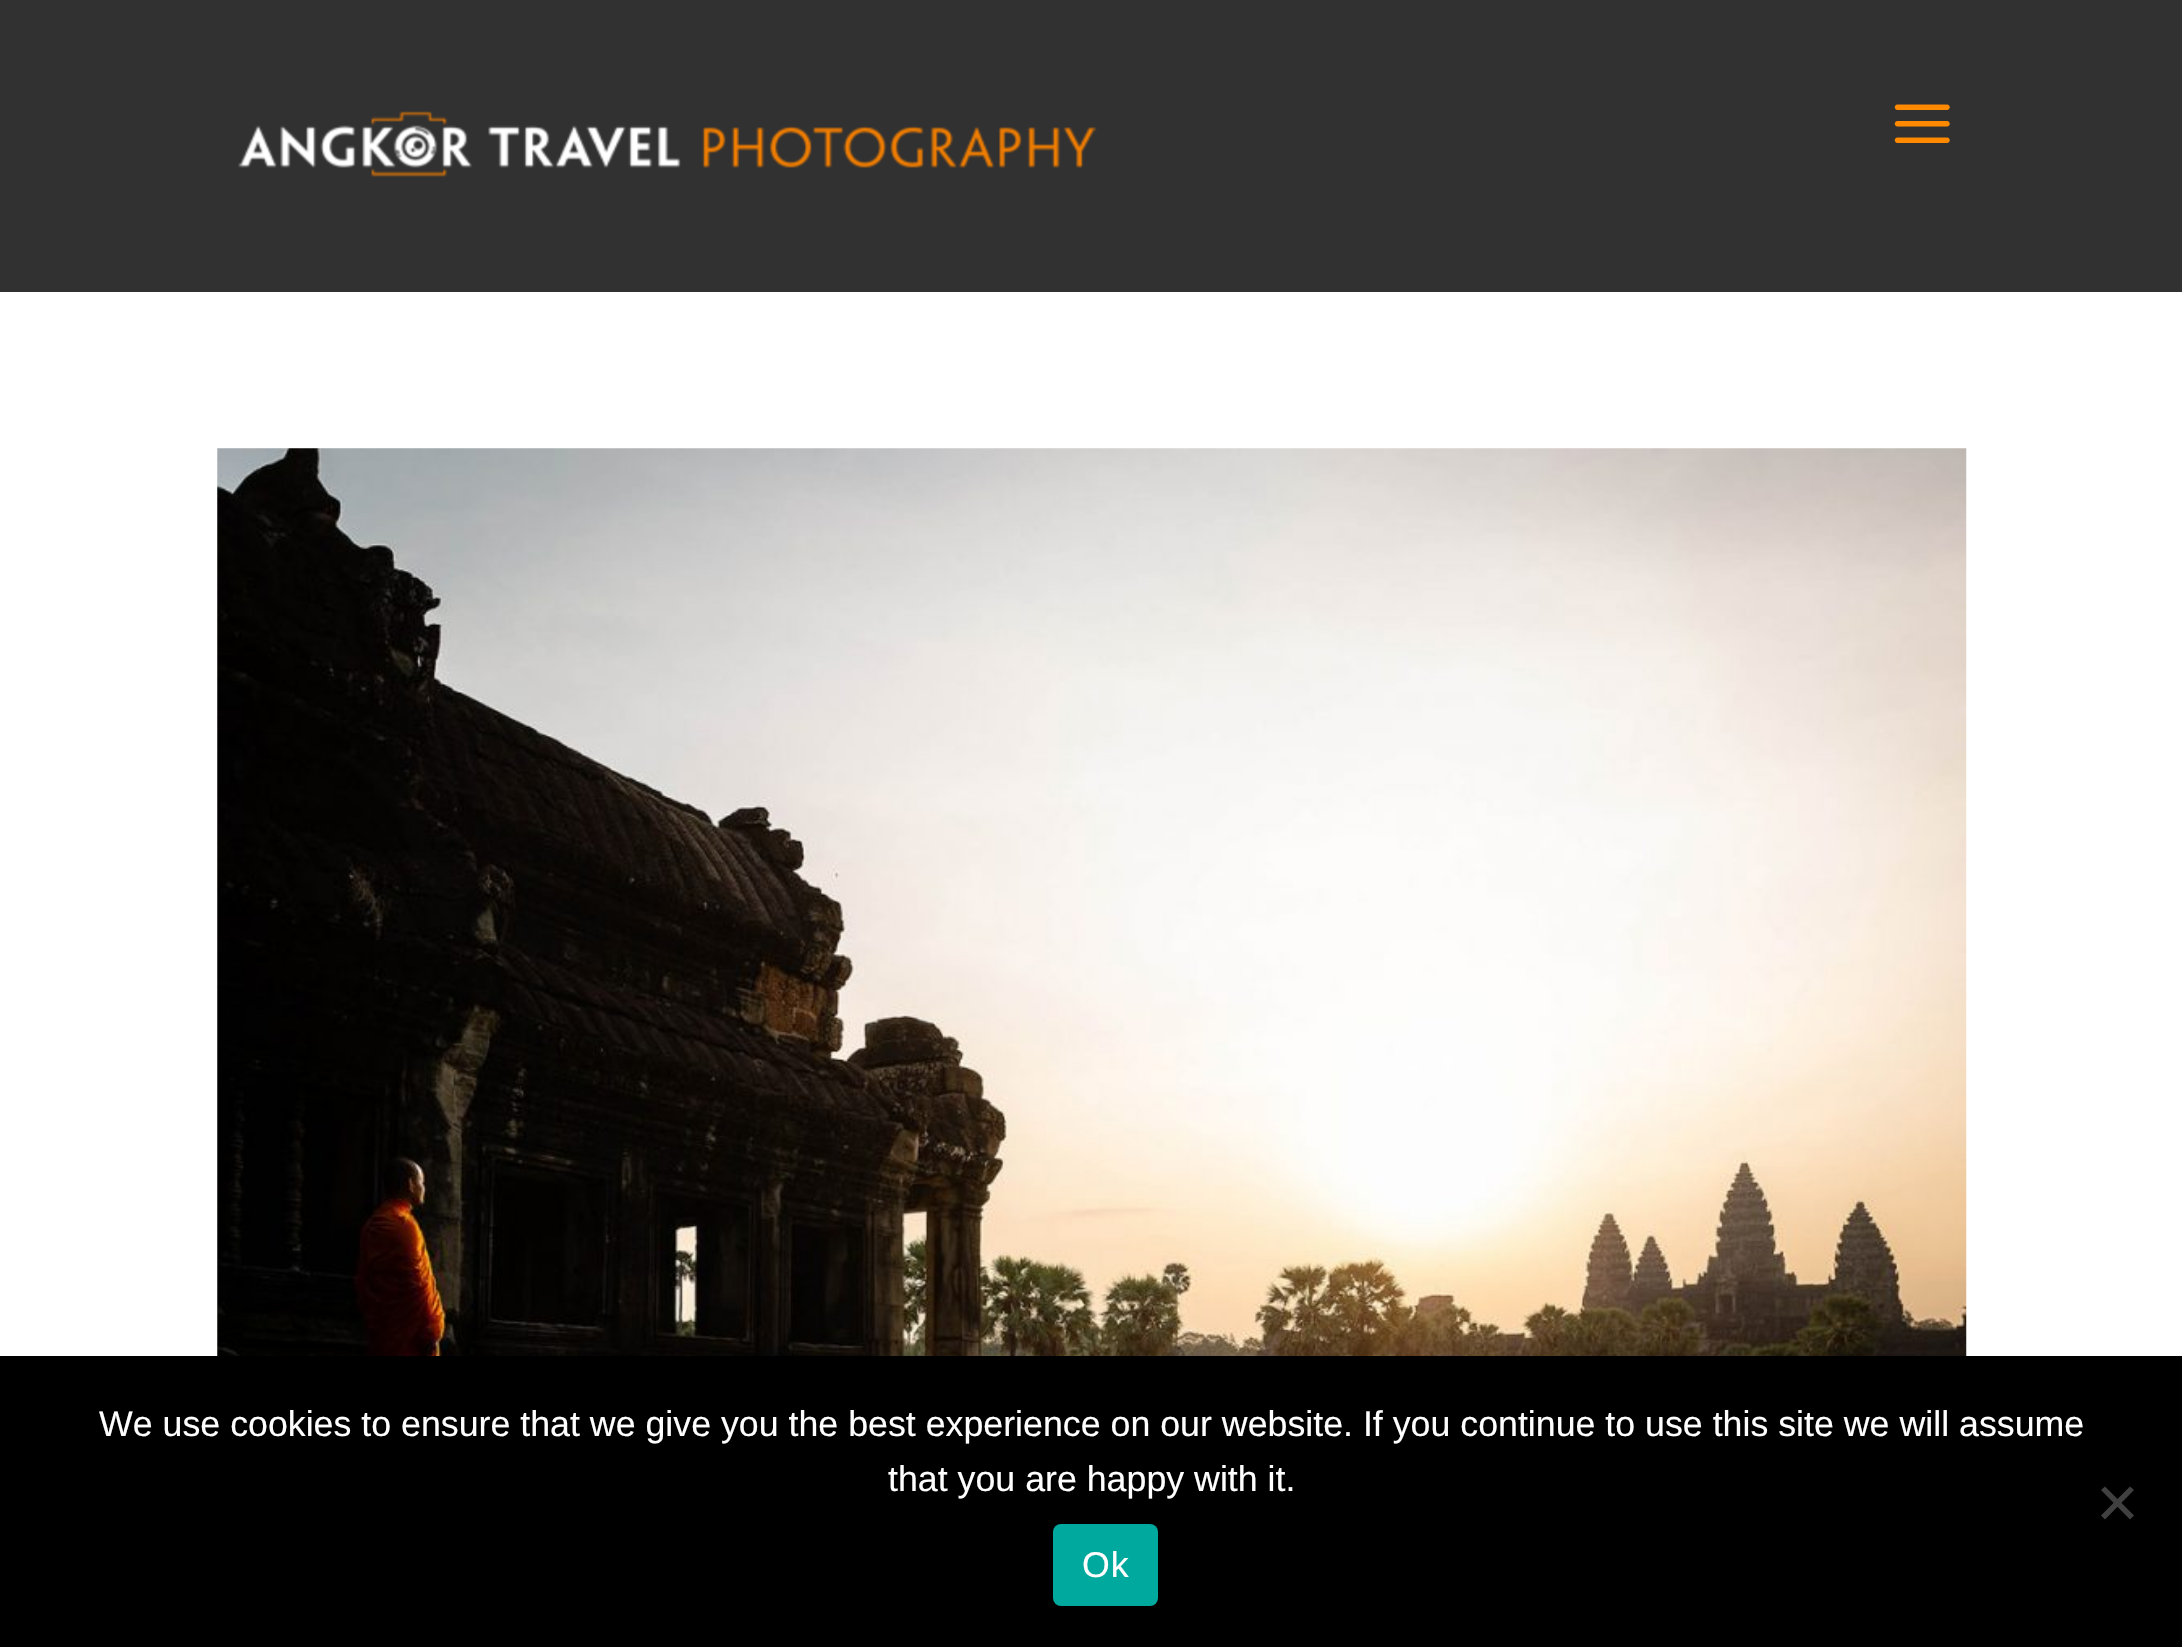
void draw(SkCanvas* canvas) {
  SkPaint paint;
  paint.setAntiAlias(true);
  auto face = [&](const char* family, int weight, float size, bool italic = false) {
    SkFontStyle style(weight, SkFontStyle::kNormal_Width,
      italic ? SkFontStyle::kItalic_Slant : SkFontStyle::kUpright_Slant);
    SkFont result(fontMgr->matchFamilyStyle(family, style), size);
    result.setSubpixel(true);
    return result;
  };
  auto writeSpaced = [&](const char* s, float x, float y, const SkFont& font, const SkPaint& ink, float letter, float word) {
    std::vector<SkGlyphID> glyphs(font.countText(s, strlen(s), SkTextEncoding::kUTF8));
    std::vector<float> xs(glyphs.size());
    font.textToGlyphs(s, strlen(s), SkTextEncoding::kUTF8, glyphs);
    font.getXPos(glyphs, xs, x);
    float extra = 0;
    for (size_t i = 0; i < glyphs.size(); i++) {
      xs[i] += extra;
      extra += letter + word * (glyphs[i] == font.unicharToGlyph(' '));
    }
    canvas->drawTextBlob(SkTextBlob::MakeFromPosHGlyphs(glyphs, xs, y, font), 0, 0, ink);
  };
  auto paste = [&](const char* path, float x, float y, float w, float h) {
    auto image = SkImages::DeferredFromEncodedData(SkData::MakeFromFileName(path));
    canvas->drawImageRect(image, SkRect::MakeXYWH(x, y, w, h), SkSamplingOptions());
  };
  auto shape = [&](const char* data, bool evenOdd = false) {
    SkPath result = *SkParsePath::FromSVGString(data);
    if (evenOdd) result.setFillType(SkPathFillType::kEvenOdd);
    return result;
  };
  canvas->clear(0xffffffff);
  paint.setColor(0xff313131);
  canvas->drawRect(SkRect::MakeXYWH(0, 0, 2182, 292), paint);
  paste("img/1.png", 238, 111, 859, 66);
  paste("img/2.png", 1894, 104, 56, 39);
  paste("img/3.png", 217, 448, 1750, 908);
  paint.setColor(0xff000000);
  canvas->drawRect(SkRect::MakeXYWH(0, 1356, 2182, 291), paint);
  paint.setColor(0xff404040);
  canvas->drawPath(shape("M2130 1486.5L2134 1490L2105 1519.5L2101 1515.5Z"), paint);
  canvas->drawPath(shape("M2101 1490L2105 1486.5L2134 1515.5L2130 1519.5Z"), paint);
  paint.setColor(0xff00a99d);
  canvas->drawRoundRect(SkRect::MakeXYWH(1053, 1524, 105, 82), 8, 8, paint);
  auto f0 = face("Liberation Sans", 400, 35.75f);
  paint.setColor(0xffffffff);
  canvas->drawString("We use cookies to ensure that we give you the best experience on our website. If you continue to use this site we will assume", 99, 1436, f0, paint);
  canvas->drawString("that you are happy with it.", 888, 1491, f0, paint);
  writeSpaced("Ok", 1082, 1577, f0, paint, 1, 0);
}
